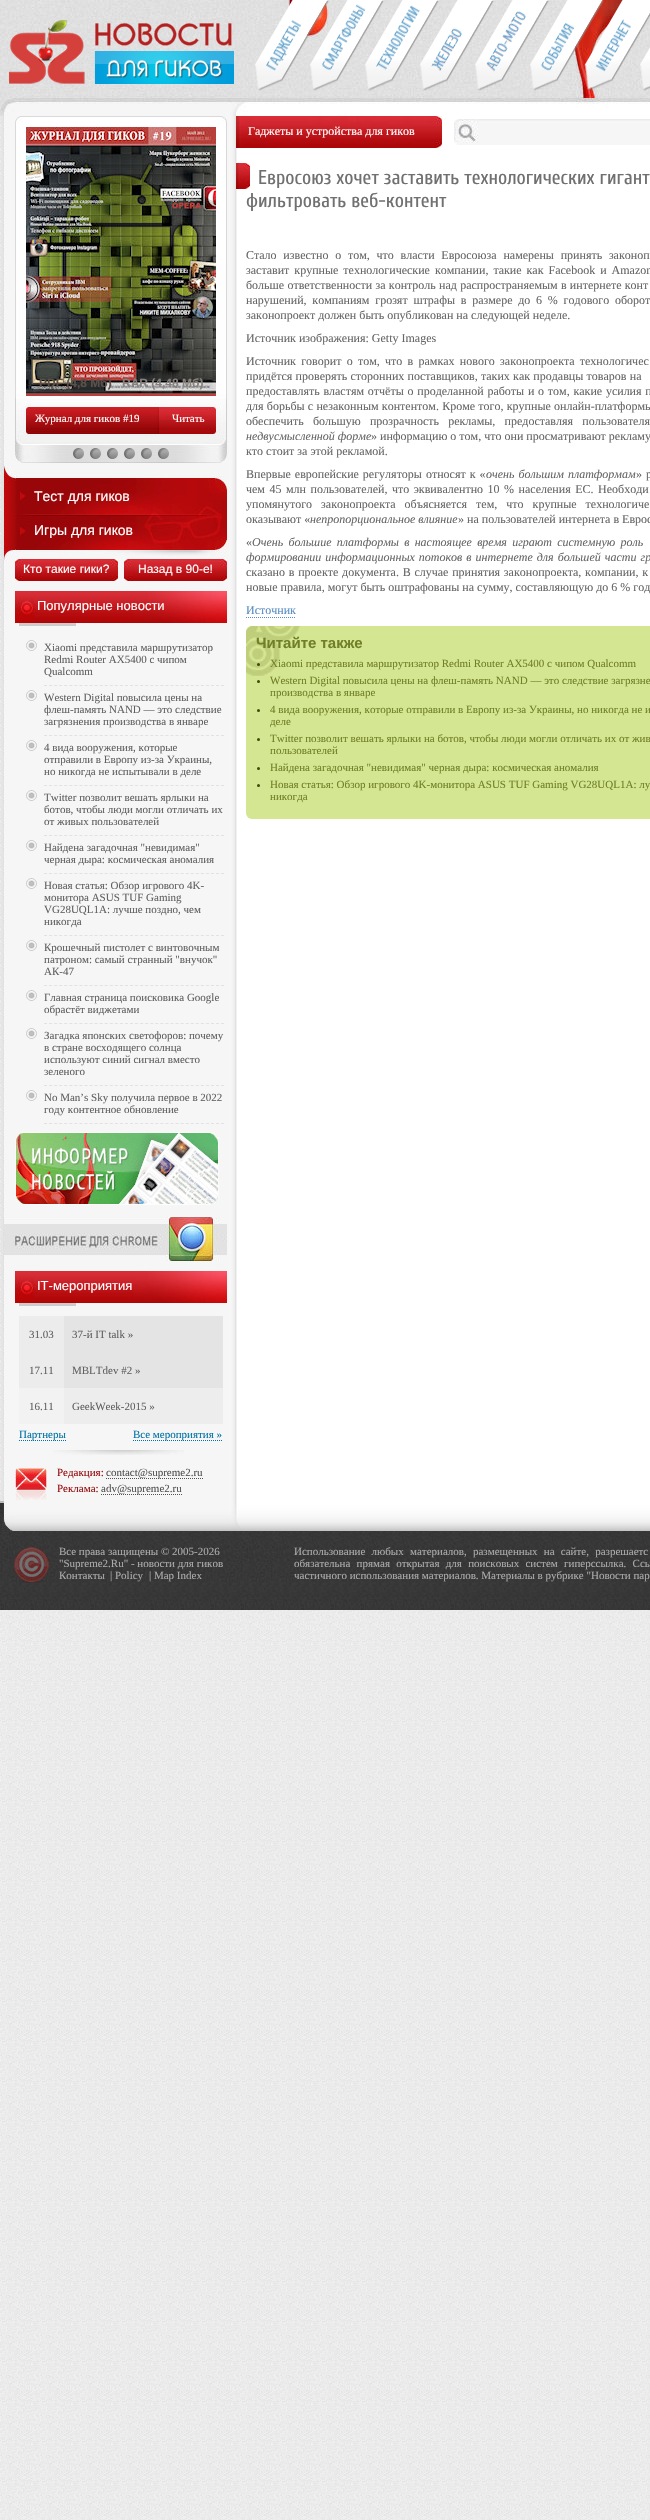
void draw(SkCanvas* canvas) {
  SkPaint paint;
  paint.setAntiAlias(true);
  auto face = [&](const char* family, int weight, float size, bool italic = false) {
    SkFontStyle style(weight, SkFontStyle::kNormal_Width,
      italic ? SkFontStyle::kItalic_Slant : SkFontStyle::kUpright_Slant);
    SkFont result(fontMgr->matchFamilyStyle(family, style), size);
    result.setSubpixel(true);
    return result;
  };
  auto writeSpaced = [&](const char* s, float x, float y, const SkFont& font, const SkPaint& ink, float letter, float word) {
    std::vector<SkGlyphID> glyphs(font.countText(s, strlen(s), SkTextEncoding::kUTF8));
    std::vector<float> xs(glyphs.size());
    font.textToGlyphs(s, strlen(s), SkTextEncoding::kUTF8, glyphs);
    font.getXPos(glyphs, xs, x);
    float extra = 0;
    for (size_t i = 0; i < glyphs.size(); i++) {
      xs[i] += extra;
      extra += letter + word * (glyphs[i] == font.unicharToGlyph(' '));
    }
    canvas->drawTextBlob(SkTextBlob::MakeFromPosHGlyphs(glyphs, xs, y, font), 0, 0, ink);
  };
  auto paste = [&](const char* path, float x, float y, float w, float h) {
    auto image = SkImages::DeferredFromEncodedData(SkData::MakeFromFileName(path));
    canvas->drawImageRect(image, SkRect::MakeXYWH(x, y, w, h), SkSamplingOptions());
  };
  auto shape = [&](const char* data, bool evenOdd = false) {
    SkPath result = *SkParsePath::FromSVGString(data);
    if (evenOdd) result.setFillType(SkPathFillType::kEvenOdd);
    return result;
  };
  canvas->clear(0xffffffff);
  paste("img/1.png", 0, 1610, 650, 910);
  paste("img/2.png", 0, 0, 650, 116);
  paste("img/3.png", 9, 20, 225, 64);
  paste("img/4.png", 255, 0, 55, 91);
  paste("img/5.png", 310, 0, 55, 91);
  paste("img/6.png", 365, 0, 55, 91);
  paste("img/7.png", 420, 0, 55, 91);
  paste("img/8.png", 475, 0, 55, 91);
  paste("img/9.png", 530, 0, 55, 91);
  paste("img/10.png", 585, 0, 55, 91);
  paste("img/11.png", 640, 0, 10, 91);
  paste("img/12.png", 0, 116, 650, 1385);
  paste("img/13.png", 15, 116, 212, 347);
  paste("img/14.png", 26, 127, 190, 269);
  paste("img/15.png", 73, 448, 11, 11);
  paste("img/16.png", 90, 448, 11, 11);
  paste("img/17.png", 107, 448, 11, 11);
  paste("img/18.png", 124, 448, 11, 11);
  paste("img/19.png", 141, 448, 11, 11);
  paste("img/20.png", 158, 448, 11, 11);
  paste("img/21.png", 4, 466, 223, 95);
  paste("img/22.png", 15, 559, 103, 22);
  paste("img/22.png", 124, 559, 103, 22);
  paste("img/23.png", 15, 591, 212, 35);
  paint.setStroke(true);
  paint.setStrokeWidth(1);
  paint.setColor(0xffe2e2e2);
  paint.setPathEffect(SkDashPathEffect::Make({{3, 2.06f}}, 0));
  canvas->drawPath(shape("M44 685.5H224"), paint);
  paint.setPathEffect(nullptr);
  paste("img/24.png", 26, 640, 11, 11);
  paint.setPathEffect(SkDashPathEffect::Make({{3, 2.06f}}, 0));
  canvas->drawPath(shape("M44 735.5H224"), paint);
  paint.setPathEffect(nullptr);
  paste("img/24.png", 26, 690, 11, 11);
  paint.setPathEffect(SkDashPathEffect::Make({{3, 2.06f}}, 0));
  canvas->drawPath(shape("M44 785.5H224"), paint);
  paint.setPathEffect(nullptr);
  paste("img/24.png", 26, 740, 11, 11);
  paint.setPathEffect(SkDashPathEffect::Make({{3, 2.06f}}, 0));
  canvas->drawPath(shape("M44 835.5H224"), paint);
  paint.setPathEffect(nullptr);
  paste("img/24.png", 26, 790, 11, 11);
  paint.setPathEffect(SkDashPathEffect::Make({{3, 2.06f}}, 0));
  canvas->drawPath(shape("M44 873.5H224"), paint);
  paint.setPathEffect(nullptr);
  paste("img/24.png", 26, 840, 11, 11);
  paint.setPathEffect(SkDashPathEffect::Make({{3, 2.06f}}, 0));
  canvas->drawPath(shape("M44 935.5H224"), paint);
  paint.setPathEffect(nullptr);
  paste("img/24.png", 26, 878, 11, 11);
  paint.setPathEffect(SkDashPathEffect::Make({{3, 2.06f}}, 0));
  canvas->drawPath(shape("M44 985.5H224"), paint);
  paint.setPathEffect(nullptr);
  paste("img/24.png", 26, 940, 11, 11);
  paint.setPathEffect(SkDashPathEffect::Make({{3, 2.06f}}, 0));
  canvas->drawPath(shape("M44 1023.5H224"), paint);
  paint.setPathEffect(nullptr);
  paste("img/24.png", 26, 990, 11, 11);
  paint.setPathEffect(SkDashPathEffect::Make({{3, 2.06f}}, 0));
  canvas->drawPath(shape("M44 1085.5H224"), paint);
  paint.setPathEffect(nullptr);
  paste("img/24.png", 26, 1028, 11, 11);
  paint.setPathEffect(SkDashPathEffect::Make({{3, 2.06f}}, 0));
  canvas->drawPath(shape("M44 1123.5H224"), paint);
  paint.setPathEffect(nullptr);
  paste("img/24.png", 26, 1090, 11, 11);
  paste("img/25.png", 15, 1132, 204, 73);
  paste("img/26.png", 4, 1217, 223, 44);
  paste("img/23.png", 15, 1271, 212, 35);
  paint.setStroke(false);
  {
    const struct { float x, y, w, h; SkColor color; } items[] = {
      {19, 1316, 45, 72, 0xffececec},
      {64, 1316, 159, 72, 0xffe4e4e4},
      {19, 1388, 45, 36, 0xfff2f2f2},
      {64, 1388, 159, 36, 0xffededed},
    };
    for (auto [x, y, w, h, color] : items) {
      paint.setColor(color);
      canvas->drawRect(SkRect::MakeXYWH(x, y, w, h), paint);
    }
  }
  paint.setStroke(true);
  paint.setColor(0xff0072a4);
  paint.setPathEffect(SkDashPathEffect::Make({{1, 1}}, 0));
  canvas->drawPath(shape("M19 1440.5H66"), paint);
  paint.setPathEffect(nullptr);
  paint.setPathEffect(SkDashPathEffect::Make({{1, 1}}, 0));
  canvas->drawPath(shape("M133 1440.5H222"), paint);
  paint.setPathEffect(nullptr);
  paste("img/27.png", 53, 1450, 131, 5);
  paste("img/28.png", 15, 1468, 32, 32);
  paint.setColor(0xff525252);
  paint.setPathEffect(SkDashPathEffect::Make({{1, 1}}, 0));
  canvas->drawPath(shape("M106 1478.5H203"), paint);
  paint.setPathEffect(nullptr);
  paint.setPathEffect(SkDashPathEffect::Make({{1, 1}}, 0));
  canvas->drawPath(shape("M101 1494.5H182"), paint);
  paint.setPathEffect(nullptr);
  paste("img/29.png", 236, 116, 206, 32);
  paste("img/30.png", 454, 119, 196, 26);
  paste("img/31.png", 236, 163, 14, 26);
  paint.setColor(0xff598cc1);
  paint.setPathEffect(SkDashPathEffect::Make({{1, 1}}, 0));
  canvas->drawPath(shape("M246 617.5H296"), paint);
  paint.setPathEffect(nullptr);
  paint.setStroke(false);
  paint.setColor(0xffd5e692);
  canvas->drawRoundRect(SkRect::MakeXYWH(246, 626, 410, 193), 6, 6, paint);
  paste("img/32.png", 246, 626, 54, 50);
  paint.setColor(0xff3e4b05);
  canvas->drawCircle(258.5f, 664.5f, 1.5f, paint);
  canvas->drawCircle(258.5f, 681.5f, 1.5f, paint);
  canvas->drawCircle(258.5f, 710.5f, 1.5f, paint);
  canvas->drawCircle(258.5f, 739.5f, 1.5f, paint);
  canvas->drawCircle(258.5f, 768.5f, 1.5f, paint);
  canvas->drawCircle(258.5f, 785.5f, 1.5f, paint);
  paste("img/33.png", 0, 1501, 650, 30);
  paste("img/34.png", 0, 1531, 650, 79);
  paste("img/35.png", 14, 1547, 35, 36);
  auto f0 = face("Liberation Sans", 700, 12);
  paint.setColor(0xff5d5049);
  canvas->drawString("PDF (4,8 Мб)", 39, 387, f0, paint);
  paint.setColor(0xff86807e);
  canvas->drawString("RAR (4,48 Мб)", 122, 387, f0, paint);
  auto f1 = face("Liberation Serif", 400, 11);
  paint.setColor(0xffffffff);
  canvas->drawString("Журнал для гиков #19", 35, 422, f1, paint);
  canvas->drawString("Читать", 172, 422, f1, paint);
  auto f2 = face("Liberation Sans", 400, 14);
  canvas->drawString("Тест для гиков", 34, 501, f2, paint);
  canvas->drawString("Игры для гиков", 34, 535, f2, paint);
  auto f3 = face("Liberation Sans", 400, 12);
  canvas->drawString("Кто такие гики?", 23, 573, f3, paint);
  canvas->drawString("Назад в 90-е!", 138, 573, f3, paint);
  auto f4 = face("Liberation Sans", 400, 13);
  canvas->drawString("Популярные новости", 37, 610, f4, paint);
  paint.setColor(0xff606060);
  {
    const struct { const char* s; float x, y; } items[] = {
      {"Xiaomi представила маршрутизатор", 44, 651},
      {"Redmi Router AX5400 с чипом", 44, 663},
      {"Qualcomm", 44, 675},
      {"Western Digital повысила цены на", 44, 701},
      {"флеш-память NAND — это следствие", 44, 713},
      {"загрязнения производства в январе", 44, 725},
      {"4 вида вооружения, которые", 44, 751},
      {"отправили в Европу из-за Украины,", 44, 763},
      {"но никогда не испытывали в деле", 44, 775},
      {"Twitter позволит вешать ярлыки на", 44, 801},
      {"ботов, чтобы люди могли отличать их", 44, 813},
      {"от живых пользователей", 44, 825},
      {"Найдена загадочная \"невидимая\"", 44, 851},
      {"черная дыра: космическая аномалия", 44, 863},
      {"Новая статья: Обзор игрового 4K-", 44, 889},
      {"монитора ASUS TUF Gaming", 44, 901},
      {"VG28UQL1A: лучше поздно, чем", 44, 913},
      {"никогда", 44, 925},
      {"Крошечный пистолет с винтовочным", 44, 951},
      {"патроном: самый странный \"внучок\"", 44, 963},
      {"АК-47", 44, 975},
      {"Главная страница поисковика Google", 44, 1001},
      {"обрастёт виджетами", 44, 1013},
      {"Загадка японских светофоров: почему", 44, 1039},
      {"в стране восходящего солнца", 44, 1051},
      {"используют синий сигнал вместо", 44, 1063},
      {"зеленого", 44, 1075},
      {"No Man’s Sky получила первое в 2022", 44, 1101},
      {"году контентное обновление", 44, 1113},
    };
    for (auto [s, x, y] : items) {
      canvas->drawString(s, x, y, f1, paint);
    }
  }
  paint.setColor(0xffffffff);
  canvas->drawString("IT-мероприятия", 37, 1290, f4, paint);
  paint.setColor(0xff606060);
  {
    const struct { const char* s; float x, y; } items[] = {
      {"31.03", 29, 1338},
      {"37-й IT talk »", 72, 1338},
      {"17.11", 29, 1374},
      {"MBLTdev #2 »", 72, 1374},
      {"16.11", 29, 1410},
      {"GeekWeek-2015 »", 72, 1410},
    };
    for (auto [s, x, y] : items) {
      canvas->drawString(s, x, y, f1, paint);
    }
  }
  paint.setColor(0xff0072a4);
  canvas->drawString("Партнеры", 19, 1438, f1, paint);
  canvas->drawString("Все мероприятия »", 133, 1438, f1, paint);
  paint.setColor(0xff960b0e);
  canvas->drawString("Редакция:", 57, 1476, f1, paint);
  paint.setColor(0xff525252);
  canvas->drawString("contact@supreme2.ru", 106, 1476, f1, paint);
  paint.setColor(0xff960b0e);
  canvas->drawString("Реклама:", 57, 1492, f1, paint);
  paint.setColor(0xff525252);
  canvas->drawString("adv@supreme2.ru", 101, 1492, f1, paint);
  auto f5 = face("Liberation Serif", 400, 12);
  paint.setColor(0xffffffff);
  canvas->drawString("Гаджеты и устройства для гиков", 248, 135, f5, paint);
  auto f6 = face("Cuprum", 400, 20);
  paint.setColor(0xff707070);
  canvas->drawString("Евросоюз хочет заставить технологических гигант", 258, 184, f6, paint);
  canvas->drawString("фильтровать веб-контент", 246, 207, f6, paint);
  paint.setColor(0xff666666);
  writeSpaced("Стало известно о том, что власти Евросоюза намерены принять законоп", 246, 259, f5, paint, 0, 3.75f);
  writeSpaced("заставит крупные технологические компании, такие как Facebook и Amazon", 246, 274, f5, paint, 0, 2);
  writeSpaced("больше ответственности за контроль над распространяемым в интернете конт", 246, 289, f5, paint, 0, 0.25f);
  writeSpaced("нарушений, компаниям грозят штрафы в размере до 6 % годового оборот", 246, 304, f5, paint, 0, 2.75f);
  canvas->drawString("законопроект должен быть опубликован на следующей неделе.", 246, 319, f5, paint);
  canvas->drawString("Источник изображения: Getty Images", 246, 342, f5, paint);
  writeSpaced("Источник говорит о том, что в рамках нового законопроекта технологичес", 246, 365, f5, paint, 0, 2.25f);
  writeSpaced("придётся проверять сторонних поставщиков, таких как продавцы товаров на", 246, 380, f5, paint, 0, 0.25f);
  writeSpaced("предоставлять властям отчёты о проделанной работы и о том, какие усилия п", 246, 395, f5, paint, 0, 0.75f);
  writeSpaced("для борьбы с незаконным контентом. Кроме того, крупные онлайн-платформы", 246, 410, f5, paint, 0, 0.25f);
  writeSpaced("обеспечить большую прозрачность рекламы, предоставляя пользователя", 246, 425, f5, paint, 0, 6.25f);
  auto f7 = face("Liberation Serif", 400, 12, true);
  canvas->drawString("недвусмысленной форме", 246, 440, f7, paint);
  canvas->drawString("» информацию о том, что они просматривают рекламу", 371, 440, f5, paint);
  canvas->drawString("кто стоит за этой рекламой.", 246, 455, f5, paint);
  writeSpaced("Впервые европейские регуляторы относят к «", 246, 478, f5, paint, 0, 1);
  writeSpaced("очень большим платформам", 486, 478, f7, paint, 0, 1);
  writeSpaced("» р", 636, 478, f5, paint, 0, 1);
  writeSpaced("чем 45 млн пользователей, что эквивалентно 10 % населения ЕС. Необходи", 246, 493, f5, paint, 0, 1.5f);
  writeSpaced("упомянутого законопроекта объясняется тем, что крупные технологиче", 246, 508, f5, paint, 0, 6);
  canvas->drawString("оказывают «", 246, 523, f5, paint);
  canvas->drawString("непропорциональное влияние", 310, 523, f7, paint);
  canvas->drawString("» на пользователей интернета в Еврос", 458, 523, f5, paint);
  canvas->drawString("«", 246, 546, f5, paint);
  writeSpaced("Очень большие платформы в настоящее время играют системную роль", 252, 546, f7, paint, 0, 2.25f);
  writeSpaced("формировании информационных потоков в интернете для большей части гр", 246, 561, f7, paint, 0, 1);
  writeSpaced("сказано в проекте документа. В случае принятия законопроекта, компании, к", 246, 576, f5, paint, 0, 0.75f);
  canvas->drawString("новые правила, могут быть оштрафованы на сумму, составляющую до 6 % год", 246, 591, f5, paint);
  paint.setColor(0xff598cc1);
  canvas->drawString("Источник", 246, 614, f5, paint);
  auto f8 = face("Liberation Sans", 700, 15);
  paint.setColor(0xff708028);
  canvas->drawString("Читайте также", 256, 648, f8, paint);
  {
    const struct { const char* s; float x, y; } items[] = {
      {"Xiaomi представила маршрутизатор Redmi Router AX5400 с чипом Qualcomm", 270, 667},
      {"Western Digital повысила цены на флеш-память NAND — это следствие загрязне", 270, 684},
      {"производства в январе", 270, 696},
      {"4 вида вооружения, которые отправили в Европу из-за Украины, но никогда не и", 270, 713},
      {"деле", 270, 725},
      {"Twitter позволит вешать ярлыки на ботов, чтобы люди могли отличать их от жив", 270, 742},
      {"пользователей", 270, 754},
      {"Найдена загадочная \"невидимая\" черная дыра: космическая аномалия", 270, 771},
      {"Новая статья: Обзор игрового 4K-монитора ASUS TUF Gaming VG28UQL1A: лу", 270, 788},
      {"никогда", 270, 800},
    };
    for (auto [s, x, y] : items) {
      canvas->drawString(s, x, y, f1, paint);
    }
  }
  paint.setColor(0xffababab);
  {
    const struct { const char* s; float x, y; } items[] = {
      {"Все права защищены © 2005-2026", 59, 1555},
      {"\"Supreme2.Ru\" - новости для гиков", 59, 1567},
      {"Контакты", 59, 1579},
      {"| Policy", 110, 1579},
      {"| Map Index", 149, 1579},
    };
    for (auto [s, x, y] : items) {
      canvas->drawString(s, x, y, f1, paint);
    }
  }
  writeSpaced("Использование любых материалов, размещенных на сайте, разрешаетс", 294, 1555, f1, paint, 0, 3.5f);
  writeSpaced("обязательна прямая открытая для поисковых систем гиперссылка. Ссы", 294, 1567, f1, paint, 0, 3.5f);
  canvas->drawString("частичного использования материалов. Материалы в рубрике \"Новости пар", 294, 1579, f1, paint);
}
